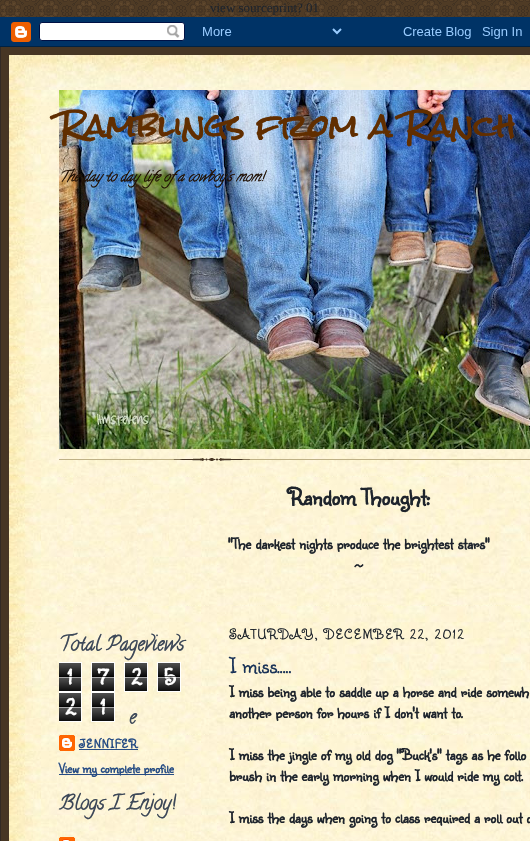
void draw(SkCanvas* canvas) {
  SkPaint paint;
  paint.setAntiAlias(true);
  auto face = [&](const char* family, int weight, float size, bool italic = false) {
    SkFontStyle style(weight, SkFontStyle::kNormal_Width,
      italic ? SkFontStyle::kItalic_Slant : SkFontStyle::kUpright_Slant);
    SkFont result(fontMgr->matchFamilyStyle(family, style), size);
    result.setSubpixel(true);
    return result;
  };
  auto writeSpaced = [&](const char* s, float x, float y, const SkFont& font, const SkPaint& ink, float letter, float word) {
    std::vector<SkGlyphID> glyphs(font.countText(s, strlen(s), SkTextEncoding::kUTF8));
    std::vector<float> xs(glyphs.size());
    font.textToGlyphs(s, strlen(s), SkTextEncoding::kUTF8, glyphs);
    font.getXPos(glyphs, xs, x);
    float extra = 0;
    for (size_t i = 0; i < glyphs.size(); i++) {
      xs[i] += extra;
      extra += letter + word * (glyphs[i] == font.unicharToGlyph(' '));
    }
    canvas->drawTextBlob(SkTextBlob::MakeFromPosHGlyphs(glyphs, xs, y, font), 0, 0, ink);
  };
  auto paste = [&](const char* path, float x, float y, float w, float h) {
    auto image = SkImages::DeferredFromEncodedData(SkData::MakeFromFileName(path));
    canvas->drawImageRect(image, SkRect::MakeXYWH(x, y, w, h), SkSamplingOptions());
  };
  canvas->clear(0xffffffff);
  paste("img/1.png", 0, 0, 530, 17);
  paste("img/2.png", 0, 17, 530, 30);
  paint.setColor(0xff473624);
  canvas->drawRect(SkRect::MakeXYWH(1, 47, 529, 794), paint);
  paint.setColor(0xff332a24);
  canvas->drawRect(SkRect::MakeXYWH(0, 47, 1, 794), paint);
  paste("img/3.png", 9, 55, 521, 35);
  paste("img/4.png", 9, 90, 521, 751);
  paste("img/5.png", 59, 458, 471, 3);
  paste("img/6.png", 59, 90, 471, 359);
  paste("img/7.png", 59, 663, 22, 28);
  canvas->save();
  canvas->clipRect(SkRect::MakeXYWH(59, 617, 150, 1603));
  paint.setStroke(true);
  paint.setStrokeWidth(1);
  paint.setColor(0xffffffff);
  canvas->drawRect(SkRect::MakeXYWH(58.5f, 662.5f, 23, 29), paint);
  canvas->restore();
  paste("img/7.png", 92, 663, 22, 28);
  canvas->drawRect(SkRect::MakeXYWH(91.5f, 662.5f, 23, 29), paint);
  paste("img/7.png", 125, 663, 22, 28);
  canvas->drawRect(SkRect::MakeXYWH(124.5f, 662.5f, 23, 29), paint);
  paste("img/7.png", 158, 663, 22, 28);
  canvas->drawRect(SkRect::MakeXYWH(157.5f, 662.5f, 23, 29), paint);
  paste("img/7.png", 59, 693, 22, 28);
  canvas->save();
  canvas->clipRect(SkRect::MakeXYWH(59, 617, 150, 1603));
  canvas->drawRect(SkRect::MakeXYWH(58.5f, 692.5f, 23, 29), paint);
  canvas->restore();
  paste("img/7.png", 92, 693, 22, 28);
  canvas->drawRect(SkRect::MakeXYWH(91.5f, 692.5f, 23, 29), paint);
  paste("img/8.png", 59, 735, 16, 16);
  paint.setStroke(false);
  paint.setColor(0xff264c84);
  canvas->drawRect(SkRect::MakeXYWH(79, 749, 59, 1), paint);
  canvas->drawRect(SkRect::MakeXYWH(59, 774, 115, 1), paint);
  paste("img/9.png", 59, 837, 16, 4);
  auto f0 = face("Liberation Serif", 400, 13);
  paint.setColor(0xff1e242c);
  canvas->drawString("view sourceprint? 01", 210, 12, f0, paint);
  auto f1 = face("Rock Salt", 700, 30);
  paint.setColor(0xff612e00);
  canvas->drawString("Ramblings from a Ranch", 59, 138, f1, paint);
  auto f2 = face("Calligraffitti", 700, 14, true);
  paint.setColor(0xff211104);
  canvas->drawString("The day to day life of a cowboy's mom!", 59, 181, f2, paint);
  auto f3 = face("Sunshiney", 700, 24);
  paint.setColor(0xff1e242c);
  canvas->drawString("Random Thought:", 288, 505, f3, paint);
  auto f4 = face("Sunshiney", 700, 16);
  canvas->drawString("\"The darkest nights produce the brightest stars\"", 228, 549, f4, paint);
  canvas->drawString("~", 354, 570, f4, paint);
  auto f5 = face("Calligraffitti", 700, 20);
  paint.setColor(0xff3d4858);
  canvas->drawString("Total Pageviews", 59, 650, f5, paint);
  paint.setColor(0xffffffff);
  canvas->drawString("1", 67, 685, f3, paint);
  paint.setColor(0xa6000000);
  canvas->drawRect(SkRect::MakeXYWH(59, 676, 22, 1), paint);
  paint.setColor(0xa6ffffff);
  canvas->drawRect(SkRect::MakeXYWH(59, 677, 22, 1), paint);
  paint.setColor(0xffffffff);
  canvas->drawString("7", 97, 685, f3, paint);
  paint.setColor(0xa6000000);
  canvas->drawRect(SkRect::MakeXYWH(92, 676, 22, 1), paint);
  paint.setColor(0xa6ffffff);
  canvas->drawRect(SkRect::MakeXYWH(92, 677, 22, 1), paint);
  paint.setColor(0xffffffff);
  canvas->drawString("2", 131, 685, f3, paint);
  paint.setColor(0xa6000000);
  canvas->drawRect(SkRect::MakeXYWH(125, 676, 22, 1), paint);
  paint.setColor(0xa6ffffff);
  canvas->drawRect(SkRect::MakeXYWH(125, 677, 22, 1), paint);
  paint.setColor(0xffffffff);
  canvas->drawString("5", 163, 685, f3, paint);
  paint.setColor(0xa6000000);
  canvas->drawRect(SkRect::MakeXYWH(158, 676, 22, 1), paint);
  paint.setColor(0xa6ffffff);
  canvas->drawRect(SkRect::MakeXYWH(158, 677, 22, 1), paint);
  paint.setColor(0xffffffff);
  canvas->drawString("2", 65, 715, f3, paint);
  paint.setColor(0xa6000000);
  canvas->drawRect(SkRect::MakeXYWH(59, 706, 22, 1), paint);
  paint.setColor(0xa6ffffff);
  canvas->drawRect(SkRect::MakeXYWH(59, 707, 22, 1), paint);
  paint.setColor(0xffffffff);
  canvas->drawString("1", 100, 715, f3, paint);
  paint.setColor(0xa6000000);
  canvas->drawRect(SkRect::MakeXYWH(92, 706, 22, 1), paint);
  paint.setColor(0xa6ffffff);
  canvas->drawRect(SkRect::MakeXYWH(92, 707, 22, 1), paint);
  paint.setColor(0xff3d4858);
  canvas->drawString("e", 129, 723, f5, paint);
  auto f6 = face("Sunshiney", 700, 12.5f);
  paint.setColor(0xff264c84);
  writeSpaced("JENNIFER", 79, 748, f6, paint, 1.25f, 0);
  auto f7 = face("Sunshiney", 700, 13.75f);
  canvas->drawString("View my complete profile", 59, 773, f7, paint);
  paint.setColor(0xff3d4858);
  canvas->drawString("Blogs I Enjoy!", 59, 809, f5, paint);
  auto f8 = face("Sunshiney", 400, 14.4f);
  paint.setColor(0xff1e242c);
  writeSpaced("SATURDAY, DECEMBER 22, 2012", 229, 639, f8, paint, 1.45f, 0);
  auto f9 = face("Sunshiney", 400, 22.5f);
  paint.setColor(0xff1a3358);
  canvas->drawString("I miss.....", 229, 673, f9, paint);
  paint.setColor(0xff1e242c);
  {
    const struct { const char* s; float x, y; } items[] = {
      {"I miss being able to saddle up a horse and ride somewh", 229, 697},
      {"another person for hours if I don't want to.", 229, 718},
      {"I miss the jingle of my old dog \"Buck's\" tags as he follo", 229, 760},
      {"brush in the early morning when I would ride my colt.", 229, 781},
      {"I miss the days when going to class required a roll out o", 229, 823},
    };
    for (auto [s, x, y] : items) {
      canvas->drawString(s, x, y, f4, paint);
    }
  }
}
